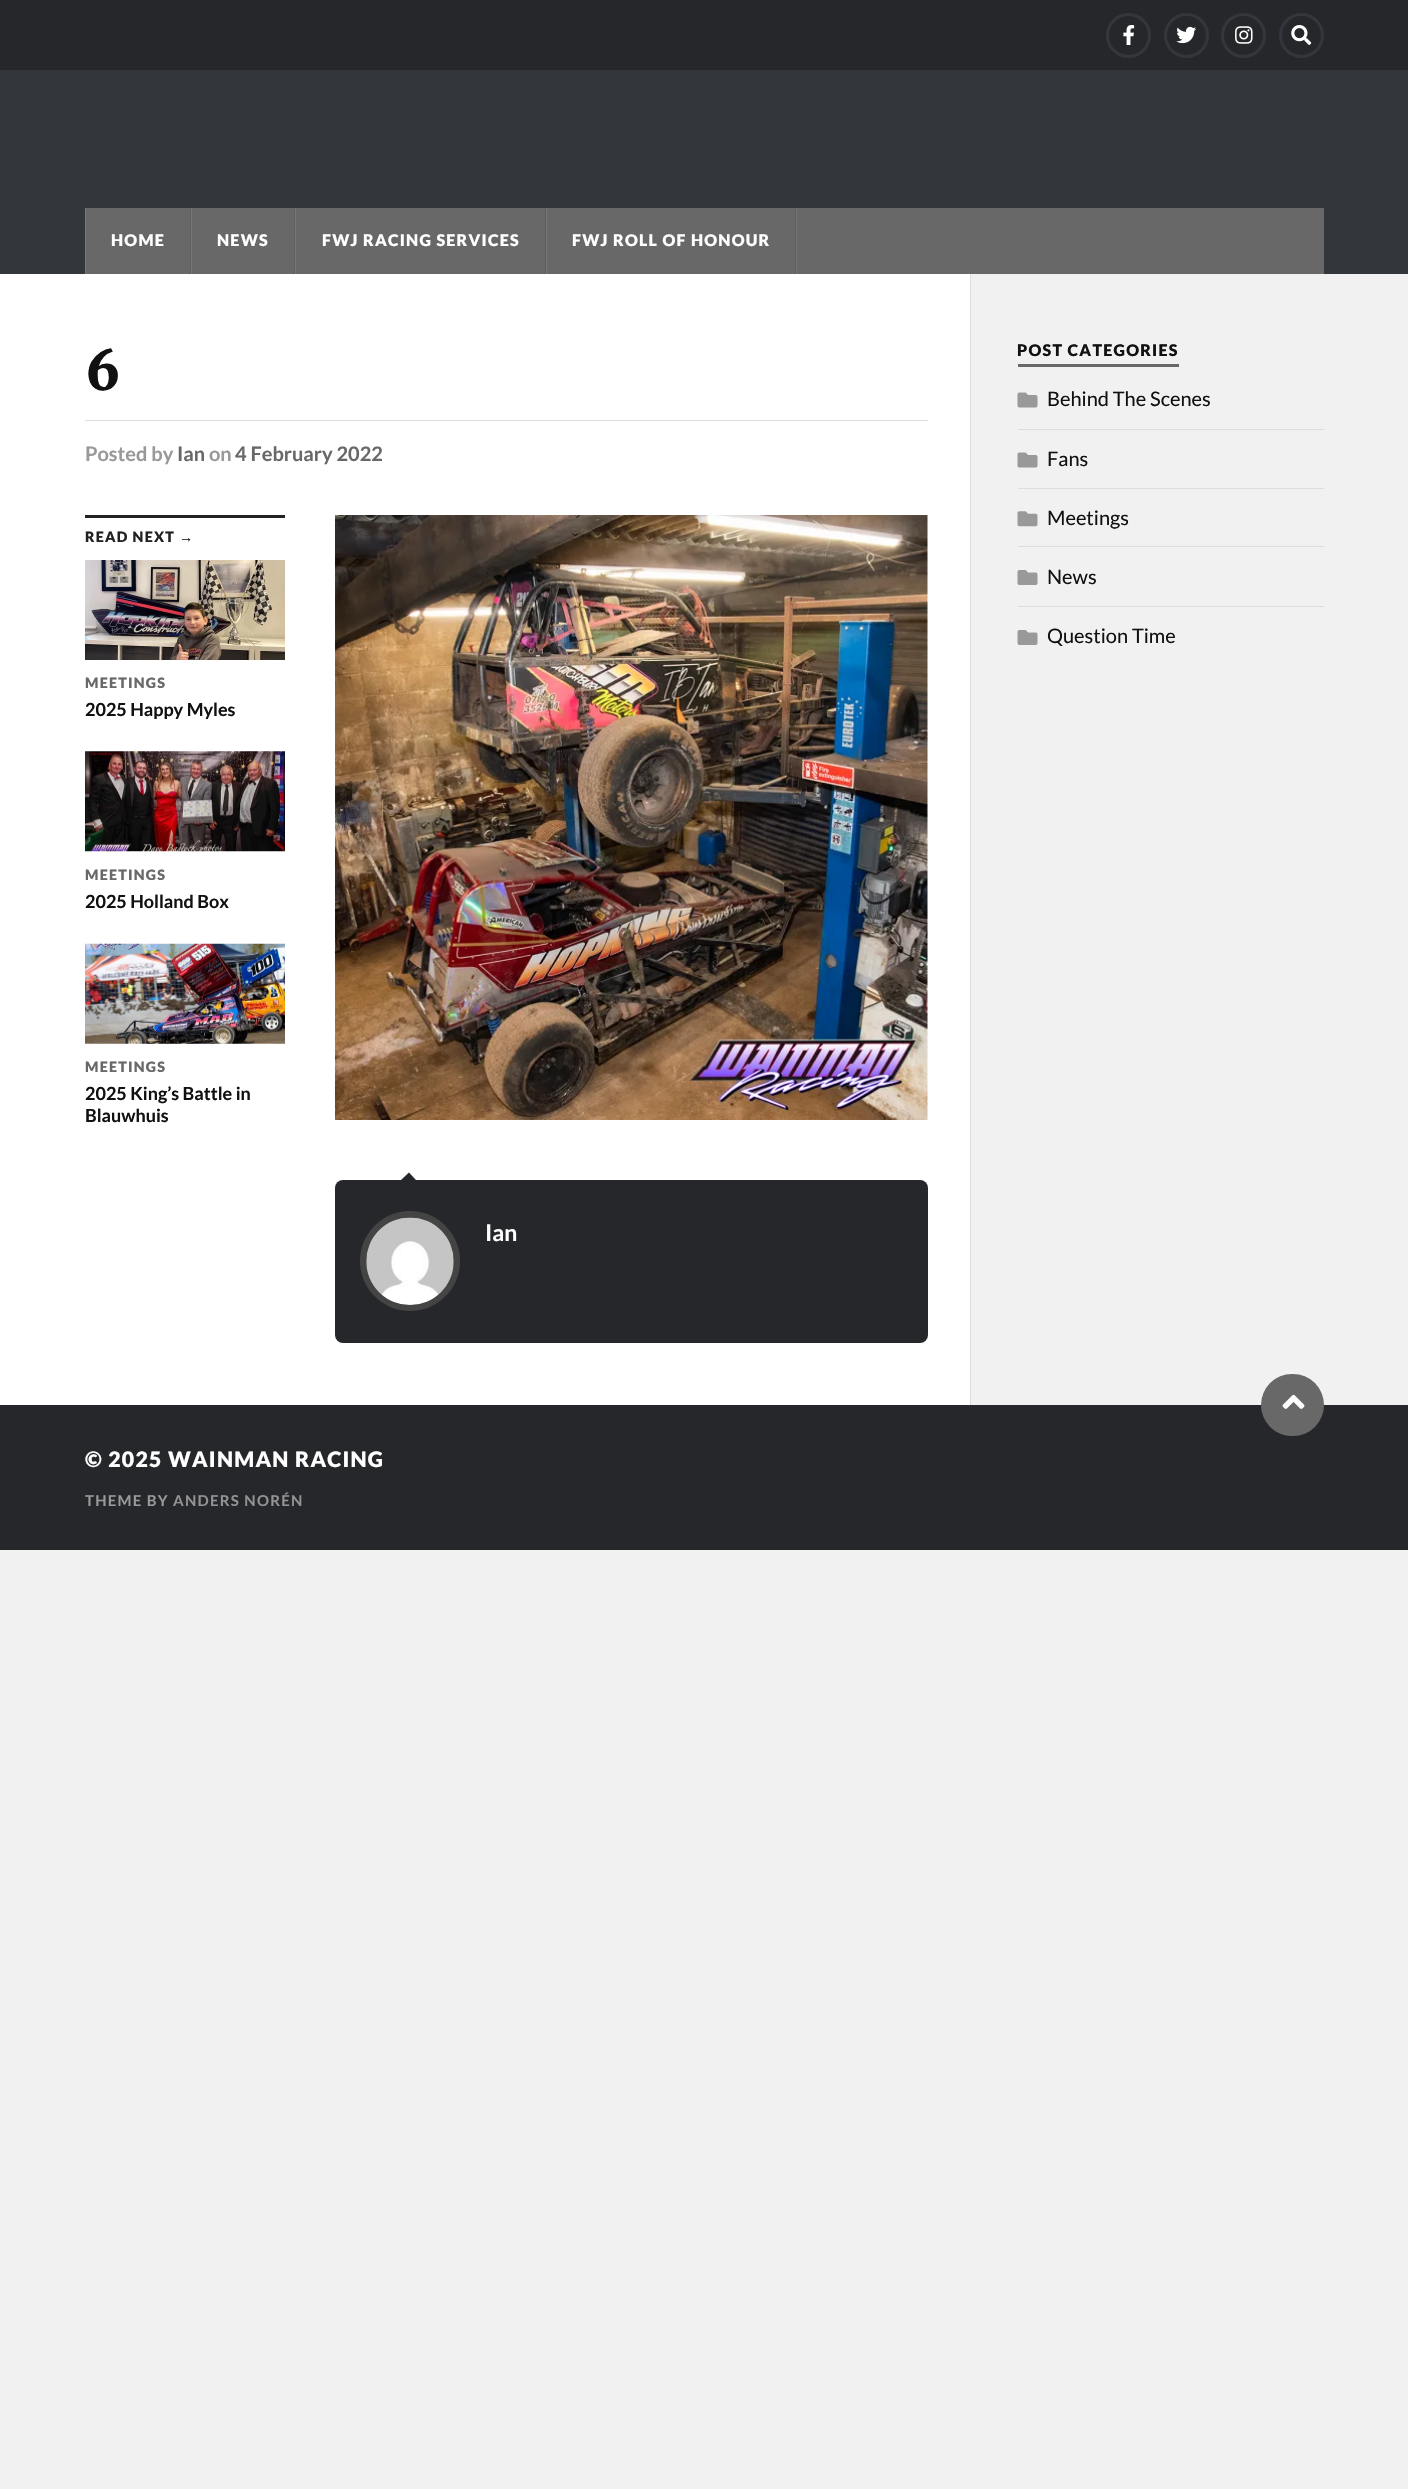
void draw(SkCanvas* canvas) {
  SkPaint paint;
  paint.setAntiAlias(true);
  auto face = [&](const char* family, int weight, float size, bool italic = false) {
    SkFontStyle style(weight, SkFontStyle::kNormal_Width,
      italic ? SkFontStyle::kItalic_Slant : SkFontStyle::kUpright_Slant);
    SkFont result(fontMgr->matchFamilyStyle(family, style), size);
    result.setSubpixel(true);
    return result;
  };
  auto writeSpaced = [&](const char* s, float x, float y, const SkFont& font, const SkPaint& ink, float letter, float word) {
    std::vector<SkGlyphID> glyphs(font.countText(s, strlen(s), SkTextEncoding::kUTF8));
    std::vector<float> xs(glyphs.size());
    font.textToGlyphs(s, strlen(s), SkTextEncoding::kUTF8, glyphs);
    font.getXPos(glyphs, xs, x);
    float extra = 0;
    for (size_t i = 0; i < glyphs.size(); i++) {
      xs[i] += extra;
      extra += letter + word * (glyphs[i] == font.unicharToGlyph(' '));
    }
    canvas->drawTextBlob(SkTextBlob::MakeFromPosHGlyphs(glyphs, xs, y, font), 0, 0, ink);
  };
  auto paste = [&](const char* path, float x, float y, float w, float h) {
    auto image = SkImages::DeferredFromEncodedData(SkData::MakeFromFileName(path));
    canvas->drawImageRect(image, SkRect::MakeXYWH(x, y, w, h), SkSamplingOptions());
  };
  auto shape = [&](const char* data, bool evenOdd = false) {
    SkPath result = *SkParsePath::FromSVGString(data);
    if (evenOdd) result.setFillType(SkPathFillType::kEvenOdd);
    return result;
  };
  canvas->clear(0xfff1f1f1);
  paint.setColor(0xff26272b);
  canvas->drawRect(SkRect::MakeXYWH(0, 0, 1408, 70), paint);
  paint.setStroke(true);
  paint.setStrokeWidth(3);
  paint.setColor(0xff33363b);
  canvas->drawCircle(1128.5f, 35.5f, 21, paint);
  paste("img/1.png", 1123, 25, 12, 20);
  canvas->drawCircle(1186.5f, 35.5f, 21, paint);
  paste("img/2.png", 1176, 26, 21, 18);
  canvas->drawCircle(1243.5f, 35.5f, 21, paint);
  paste("img/3.png", 1235, 26, 18, 18);
  canvas->drawCircle(1301.5f, 35.5f, 21, paint);
  paste("img/4.png", 1291, 25, 21, 20);
  paint.setStroke(false);
  {
    const struct { float x, y, w, h; SkColor color; } items[] = {
      {0, 70, 1408, 204, 0xff33363b},
      {86, 208, 1238, 66, 0xff686868},
      {190, 208, 1, 66, 0xff5e5e5e},
      {85, 208, 1, 66, 0xff777777},
      {294, 208, 1, 66, 0xff5e5e5e},
      {191, 208, 1, 66, 0xff777777},
      {545, 208, 1, 66, 0xff5e5e5e},
      {295, 208, 1, 66, 0xff777777},
      {795, 208, 1, 66, 0xff5e5e5e},
      {546, 208, 1, 66, 0xff777777},
      {796, 208, 1, 66, 0xff777777},
      {0, 274, 970, 1131, 0xffffffff},
      {85, 420, 843, 1, 0xffdddddd},
      {85, 515, 200, 3, 0xff222222},
    };
    for (auto [x, y, w, h, color] : items) {
      paint.setColor(color);
      canvas->drawRect(SkRect::MakeXYWH(x, y, w, h), paint);
    }
  }
  paste("img/5.png", 85, 560, 200, 100);
  paste("img/6.png", 85, 751, 200, 101);
  paste("img/7.png", 85, 943, 200, 101);
  paste("img/8.png", 335, 515, 593, 605);
  paint.setColor(0xff26272b);
  canvas->drawRoundRect(SkRect::MakeXYWH(335, 1180, 593, 163), 8, 8, paint);
  paint.setColor(0xff25262b);
  canvas->drawPath(shape("M416 1180H401L409 1172.5Z"), paint);
  paint.setColor(0xff444444);
  canvas->drawCircle(410, 1261, 50, paint);
  paste("img/9.png", 366, 1217, 88, 88);
  {
    const struct { float x, y, w, h; SkColor color; } items[] = {
      {970, 274, 1, 1131, 0xffdddddd},
      {1018, 364, 161, 3, 0xff686868},
      {1018, 429, 306, 1, 0xffdddddd},
    };
    for (auto [x, y, w, h, color] : items) {
      paint.setColor(color);
      canvas->drawRect(SkRect::MakeXYWH(x, y, w, h), paint);
    }
  }
  paste("img/10.png", 1017, 392, 21, 16);
  canvas->drawRect(SkRect::MakeXYWH(1018, 488, 306, 1), paint);
  paste("img/10.png", 1017, 452, 21, 16);
  canvas->drawRect(SkRect::MakeXYWH(1018, 546, 306, 1), paint);
  paste("img/11.png", 1017, 511, 21, 16);
  canvas->drawRect(SkRect::MakeXYWH(1018, 606, 306, 1), paint);
  paste("img/12.png", 1017, 570, 21, 15);
  paste("img/12.png", 1017, 630, 21, 15);
  paint.setColor(0xff26272b);
  canvas->drawRect(SkRect::MakeXYWH(0, 1405, 1408, 145), paint);
  paint.setColor(0xff686868);
  canvas->drawRoundRect(SkRect::MakeXYWH(1261, 1374, 63, 62), 31, 31, paint);
  paste("img/13.png", 1282, 1394, 23, 15);
  auto f0 = face("Lato", 900, 16);
  paint.setColor(0xffffffff);
  {
    const struct { const char* s; float x, y; } items[] = {
      {"HOME", 111, 246},
      {"NEWS", 217, 246},
      {"FWJ RACING SERVICES", 322, 246},
      {"FWJ ROLL OF HONOUR", 572, 246},
    };
    for (auto [s, x, y] : items) {
      writeSpaced(s, x, y, f0, paint, 1.25f, 0);
    }
  }
  auto f1 = face("Merriweather", 900, 53);
  paint.setColor(0xff111111);
  writeSpaced("6", 85, 390, f1, paint, -1, 0);
  auto f2 = face("Lato", 700, 20);
  paint.setColor(0xff999999);
  canvas->drawString("Posted by", 85, 461, f2, paint);
  paint.setColor(0xff686868);
  canvas->drawString("Ian", 177, 461, f2, paint);
  paint.setColor(0xff999999);
  canvas->drawString("on", 209, 461, f2, paint);
  paint.setColor(0xff686868);
  canvas->drawString("4 February 2022", 235, 461, f2, paint);
  auto f3 = face("Lato", 900, 14.25f);
  paint.setColor(0xff222222);
  writeSpaced("READ NEXT", 85, 542, f3, paint, 1.25f, 0);
  auto f4 = face("Liberation Sans", 700, 14.25f);
  writeSpaced("→", 179, 542, f4, paint, 1.25f, 0);
  paint.setColor(0xff686868);
  writeSpaced("MEETINGS", 85, 688, f3, paint, 1.25f, 0);
  auto f5 = face("Lato", 700, 18);
  paint.setColor(0xff111111);
  canvas->drawString("2025 Happy Myles", 85, 716, f5, paint);
  paint.setColor(0xff686868);
  writeSpaced("MEETINGS", 85, 880, f3, paint, 1.25f, 0);
  paint.setColor(0xff111111);
  canvas->drawString("2025 Holland Box", 85, 908, f5, paint);
  paint.setColor(0xff686868);
  writeSpaced("MEETINGS", 85, 1072, f3, paint, 1.25f, 0);
  paint.setColor(0xff111111);
  canvas->drawString("2025 King’s Battle in", 85, 1100, f5, paint);
  canvas->drawString("Blauwhuis", 85, 1122, f5, paint);
  auto f6 = face("Lato", 700, 23);
  paint.setColor(0xffffffff);
  canvas->drawString("Ian", 485, 1241, f6, paint);
  paint.setColor(0xff111111);
  writeSpaced("POST CATEGORIES", 1017, 356, f0, paint, 1.25f, 0);
  auto f7 = face("Lato", 400, 20);
  {
    const struct { const char* s; float x, y; } items[] = {
      {"Behind The Scenes", 1047, 406},
      {"Fans", 1047, 466},
      {"Meetings", 1047, 525},
      {"News", 1047, 584},
      {"Question Time", 1047, 643},
    };
    for (auto [s, x, y] : items) {
      canvas->drawString(s, x, y, f7, paint);
    }
  }
  auto f8 = face("Lato", 900, 21.25f);
  paint.setColor(0xffffffff);
  writeSpaced("© 2025 WAINMAN RACING", 85, 1467, f8, paint, 1.25f, 0);
  auto f9 = face("Lato", 700, 15);
  paint.setColor(0xff999999);
  writeSpaced("THEME BY", 85, 1506, f9, paint, 1.25f, 0);
  paint.setColor(0xff939395);
  writeSpaced("ANDERS NORÉN", 173, 1506, f9, paint, 1.25f, 0);
}
